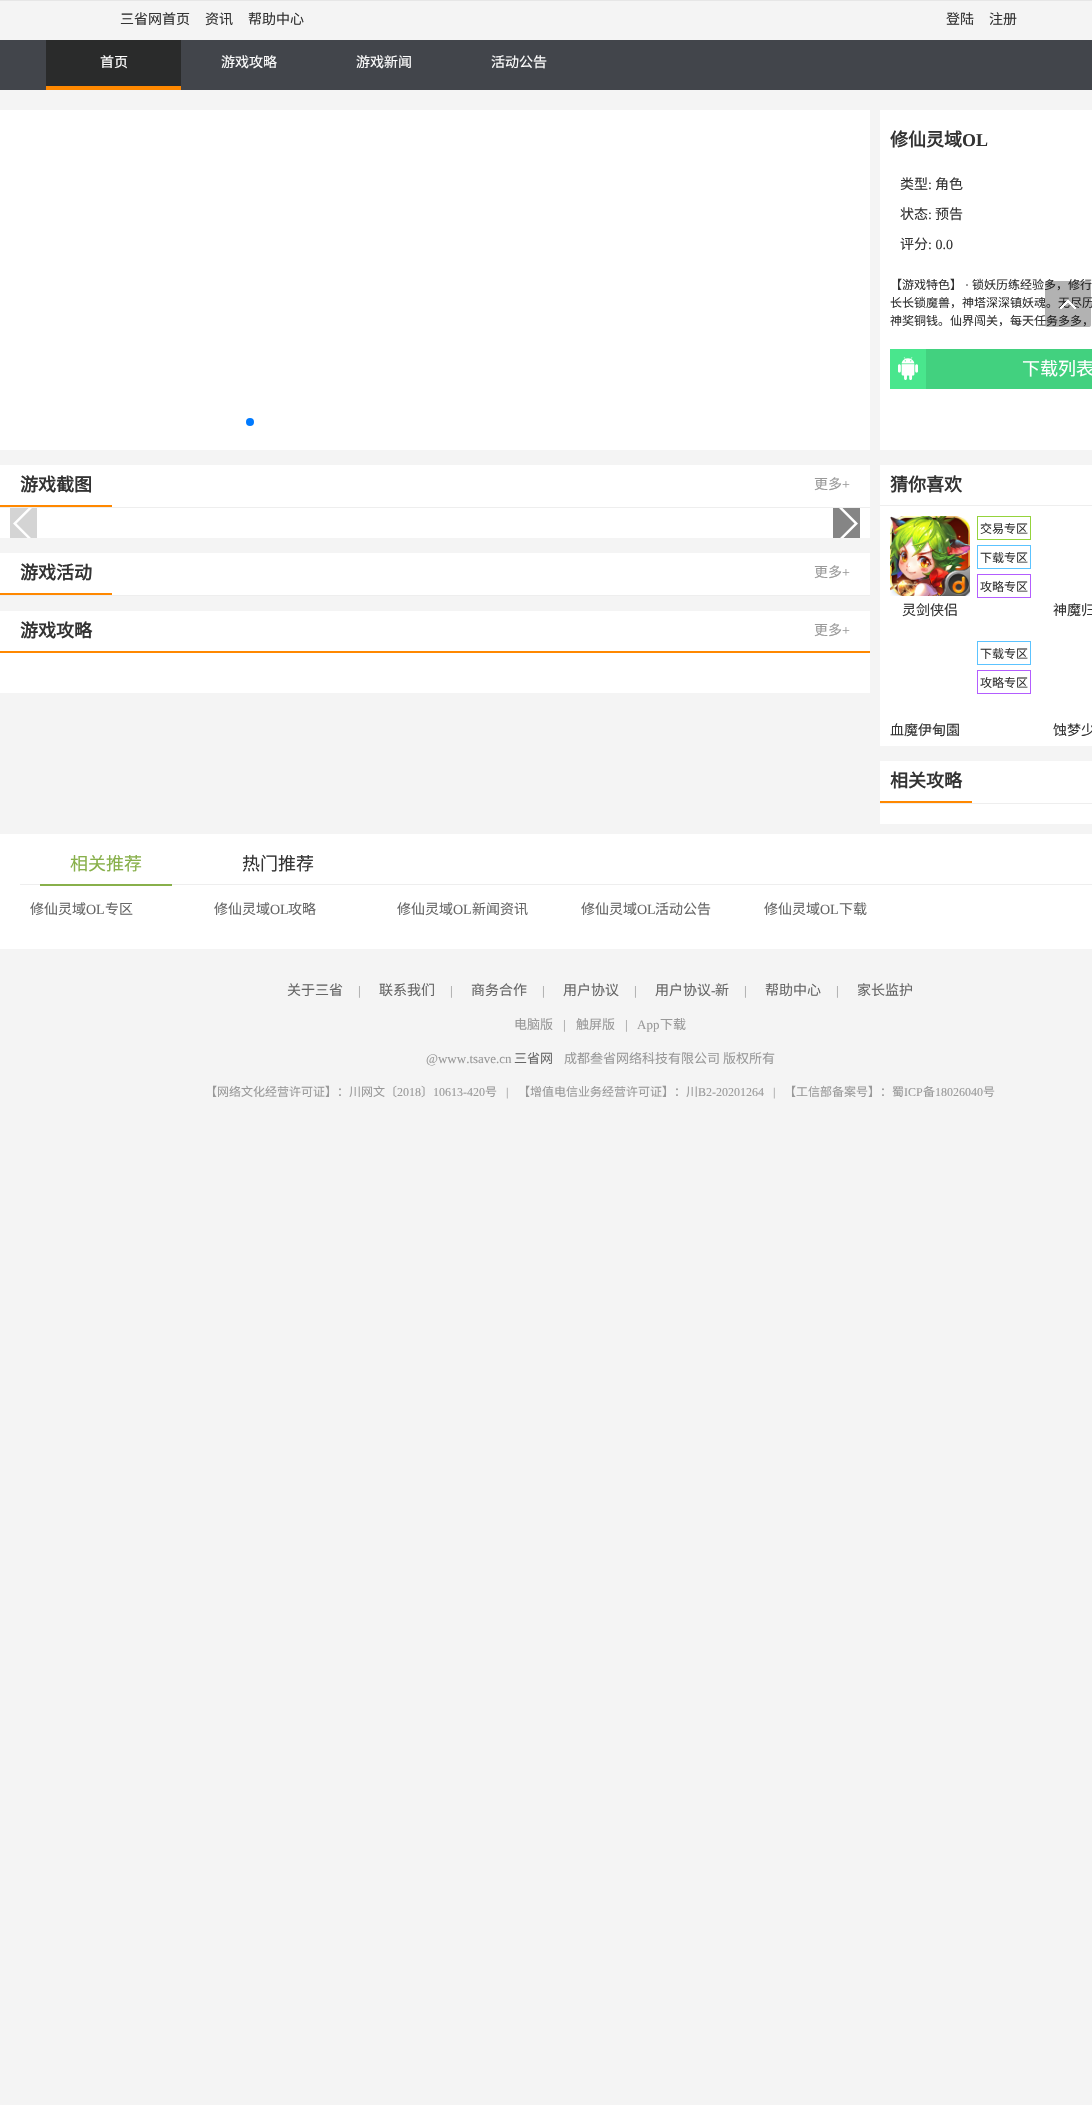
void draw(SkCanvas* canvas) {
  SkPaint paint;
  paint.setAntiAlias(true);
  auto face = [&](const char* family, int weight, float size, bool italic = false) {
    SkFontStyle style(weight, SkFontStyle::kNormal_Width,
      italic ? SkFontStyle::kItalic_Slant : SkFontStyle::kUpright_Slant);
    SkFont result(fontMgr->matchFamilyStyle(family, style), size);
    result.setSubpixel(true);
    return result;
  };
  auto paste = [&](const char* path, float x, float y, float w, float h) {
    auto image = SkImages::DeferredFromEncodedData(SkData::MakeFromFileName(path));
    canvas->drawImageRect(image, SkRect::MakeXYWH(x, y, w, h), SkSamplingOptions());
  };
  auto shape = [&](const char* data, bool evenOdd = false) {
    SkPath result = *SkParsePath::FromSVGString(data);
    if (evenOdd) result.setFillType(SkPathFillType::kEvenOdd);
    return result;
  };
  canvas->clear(0xfff4f4f4);
  {
    const struct { float x, y, w, h; SkColor color; } items[] = {
      {0, 0, 1092, 1, 0xffe6e6e6},
      {0, 40, 1092, 50, 0xff42454b},
      {46, 40, 135, 46, 0xff2a2b2b},
      {46, 86, 135, 4, 0xffff8800},
      {0, 110, 870, 340, 0xffffffff},
    };
    for (auto [x, y, w, h, color] : items) {
      paint.setColor(color);
      canvas->drawRect(SkRect::MakeXYWH(x, y, w, h), paint);
    }
  }
  paint.setColor(0xff007aff);
  canvas->drawCircle(250, 422, 4, paint);
  {
    const struct { float x, y, w, h; SkColor color; } items[] = {
      {0, 465, 870, 73, 0xffffffff},
      {0, 507, 870, 1, 0xffeeeeee},
      {0, 505, 112, 2, 0xffff8800},
      {10, 508, 27, 30, 0xffd4d4d4},
    };
    for (auto [x, y, w, h, color] : items) {
      paint.setColor(color);
      canvas->drawRect(SkRect::MakeXYWH(x, y, w, h), paint);
    }
  }
  canvas->save();
  canvas->clipRect(SkRect::MakeXYWH(13, 508, 22, 30));
  paint.setColor(0xffffffff);
  canvas->drawPath(shape("M13 523.5L31 505.5L32.5 507.5L16.5 523.5L32.5 539.5L31 541.5Z"), paint);
  canvas->restore();
  paint.setColor(0xff858585);
  canvas->drawRect(SkRect::MakeXYWH(833, 508, 27, 30), paint);
  canvas->save();
  canvas->clipRect(SkRect::MakeXYWH(836, 508, 22, 30));
  paint.setColor(0xffffffff);
  canvas->drawPath(shape("M858 523.5L840 541.5L838.5 539.5L854.5 523.5L838.5 507.5L840 505.5Z"), paint);
  canvas->restore();
  {
    const struct { float x, y, w, h; SkColor color; } items[] = {
      {0, 553, 870, 42, 0xffffffff},
      {0, 595, 870, 1, 0xffeeeeee},
      {0, 593, 112, 2, 0xffff8800},
      {0, 611, 870, 40, 0xffffffff},
      {0, 651, 870, 2, 0xffff8800},
      {0, 653, 870, 40, 0xffffffff},
      {880, 110, 212, 340, 0xffffffff},
      {890, 349, 36, 40, 0xff49e68d},
    };
    for (auto [x, y, w, h, color] : items) {
      paint.setColor(color);
      canvas->drawRect(SkRect::MakeXYWH(x, y, w, h), paint);
    }
  }
  paste("img/1.png", 898, 357, 20, 23);
  {
    const struct { float x, y, w, h; SkColor color; } items[] = {
      {926, 349, 166, 40, 0xff42d17f},
      {880, 465, 212, 40, 0xffffffff},
      {880, 505, 212, 1, 0xffeeeeee},
      {880, 506, 212, 240, 0xffffffff},
    };
    for (auto [x, y, w, h, color] : items) {
      paint.setColor(color);
      canvas->drawRect(SkRect::MakeXYWH(x, y, w, h), paint);
    }
  }
  paint.setStroke(true);
  paint.setStrokeWidth(1);
  paint.setColor(0xff95d33c);
  canvas->drawRect(SkRect::MakeXYWH(977.5f, 516.5f, 53, 23), paint);
  paint.setColor(0xff5cc3ff);
  canvas->drawRect(SkRect::MakeXYWH(977.5f, 545.5f, 53, 23), paint);
  paint.setColor(0xffb35dff);
  canvas->drawRect(SkRect::MakeXYWH(977.5f, 574.5f, 53, 23), paint);
  paste("img/2.png", 890, 516, 80, 80);
  paint.setColor(0xff5cc3ff);
  canvas->drawRect(SkRect::MakeXYWH(977.5f, 641.5f, 53, 23), paint);
  paint.setColor(0xffb35dff);
  canvas->drawRect(SkRect::MakeXYWH(977.5f, 670.5f, 53, 23), paint);
  paint.setStroke(false);
  {
    const struct { float x, y, w, h; SkColor color; } items[] = {
      {880, 761, 212, 42, 0xffffffff},
      {880, 803, 212, 1, 0xffeeeeee},
      {880, 801, 92, 2, 0xffff8800},
      {880, 804, 212, 20, 0xffffffff},
      {0, 834, 1092, 115, 0xffffffff},
      {20, 884, 1072, 1, 0xffeeeeee},
      {40, 884, 132, 2, 0xff88b04b},
    };
    for (auto [x, y, w, h, color] : items) {
      paint.setColor(color);
      canvas->drawRect(SkRect::MakeXYWH(x, y, w, h), paint);
    }
  }
  auto f0 = face("Noto Sans CJK SC", 400, 14);
  paint.setColor(0xff333333);
  {
    const struct { const char* s; float x, y; } items[] = {
      {"三省网首页", 120, 24},
      {"资讯", 205, 24},
      {"帮助中心", 248, 24},
      {"登陆", 946, 24},
      {"注册", 989, 24},
    };
    for (auto [s, x, y] : items) {
      canvas->drawString(s, x, y, f0, paint);
    }
  }
  paint.setColor(0xffffffff);
  {
    const struct { const char* s; float x, y; } items[] = {
      {"首页", 100, 67},
      {"游戏攻略", 221, 67},
      {"游戏新闻", 356, 67},
      {"活动公告", 491, 67},
    };
    for (auto [s, x, y] : items) {
      canvas->drawString(s, x, y, f0, paint);
    }
  }
  auto f1 = face("Noto Sans CJK SC", 700, 18);
  paint.setColor(0xff333333);
  canvas->drawString("游戏截图", 20, 491, f1, paint);
  paint.setColor(0xff999999);
  canvas->drawString("更多", 814, 489, f0, paint);
  auto f2 = face("Liberation Serif", 400, 14);
  canvas->drawString("+", 842, 489, f2, paint);
  paint.setColor(0xff333333);
  canvas->drawString("游戏活动", 20, 579, f1, paint);
  paint.setColor(0xff999999);
  canvas->drawString("更多", 814, 577, f0, paint);
  canvas->drawString("+", 842, 577, f2, paint);
  paint.setColor(0xff333333);
  canvas->drawString("游戏攻略", 20, 637, f1, paint);
  paint.setColor(0xff999999);
  canvas->drawString("更多", 814, 635, f0, paint);
  canvas->drawString("+", 842, 635, f2, paint);
  paint.setColor(0xff333333);
  canvas->drawString("修仙灵域", 890, 146, f1, paint);
  auto f3 = face("Liberation Serif", 700, 18);
  canvas->drawString("OL", 962, 146, f3, paint);
  canvas->drawString("类型", 900, 189, f0, paint);
  canvas->drawString(":", 928, 189, f2, paint);
  canvas->drawString("角色", 935, 189, f0, paint);
  canvas->drawString("状态", 900, 219, f0, paint);
  canvas->drawString(":", 928, 219, f2, paint);
  canvas->drawString("预告", 935, 219, f0, paint);
  canvas->drawString("评分", 900, 249, f0, paint);
  canvas->drawString(": 0.0", 928, 249, f2, paint);
  auto f4 = face("Noto Sans CJK SC", 400, 12);
  canvas->drawString("【游戏特色】", 890, 289, f4, paint);
  auto f5 = face("Liberation Serif", 400, 12);
  canvas->drawString("·", 965, 289, f5, paint);
  {
    const struct { const char* s; float x, y; } items[] = {
      {"锁妖历练经验多，修行", 972, 289},
      {"长长锁魔兽，神塔深深镇妖魂。无尽历", 890, 307},
      {"神奖铜钱。仙界闯关，每天任务多多，", 890, 325},
    };
    for (auto [s, x, y] : items) {
      canvas->drawString(s, x, y, f4, paint);
    }
  }
  auto f6 = face("Noto Sans CJK SC", 400, 18);
  paint.setColor(0xffffffff);
  canvas->drawString("下载列表", 1022, 375, f6, paint);
  paint.setColor(0xff333333);
  canvas->drawString("猜你喜欢", 890, 491, f1, paint);
  {
    const struct { const char* s; float x, y; } items[] = {
      {"交易专区", 980, 533},
      {"下载专区", 980, 562},
      {"攻略专区", 980, 591},
    };
    for (auto [s, x, y] : items) {
      canvas->drawString(s, x, y, f4, paint);
    }
  }
  canvas->drawString("灵剑侠侣", 902, 615, f0, paint);
  canvas->drawString("神魔归", 1053, 615, f0, paint);
  canvas->drawString("下载专区", 980, 658, f4, paint);
  canvas->drawString("攻略专区", 980, 687, f4, paint);
  canvas->drawString("血魔伊甸園", 890, 735, f0, paint);
  canvas->drawString("蚀梦少", 1053, 735, f0, paint);
  canvas->drawString("相关攻略", 890, 787, f1, paint);
  paint.setColor(0xff88b04b);
  canvas->drawString("相关推荐", 70, 870, f6, paint);
  paint.setColor(0xff333333);
  canvas->drawString("热门推荐", 242, 870, f6, paint);
  paint.setColor(0xff666666);
  canvas->drawString("修仙灵域", 30, 914, f0, paint);
  canvas->drawString("OL", 86, 914, f2, paint);
  canvas->drawString("专区", 105, 914, f0, paint);
  canvas->drawString("修仙灵域", 214, 914, f0, paint);
  canvas->drawString("OL", 270, 914, f2, paint);
  canvas->drawString("攻略", 288, 914, f0, paint);
  canvas->drawString("修仙灵域", 397, 914, f0, paint);
  canvas->drawString("OL", 453, 914, f2, paint);
  canvas->drawString("新闻资讯", 472, 914, f0, paint);
  canvas->drawString("修仙灵域", 581, 914, f0, paint);
  canvas->drawString("OL", 637, 914, f2, paint);
  canvas->drawString("活动公告", 655, 914, f0, paint);
  canvas->drawString("修仙灵域", 764, 914, f0, paint);
  canvas->drawString("OL", 820, 914, f2, paint);
  canvas->drawString("下载", 839, 914, f0, paint);
  paste("img/3.png", 1045, 281, 46, 46);
  canvas->drawString("关于三省", 287, 995, f0, paint);
  auto f7 = face("Liberation Serif", 400, 13);
  paint.setColor(0xff999999);
  canvas->drawString("|", 358, 995, f7, paint);
  paint.setColor(0xff666666);
  canvas->drawString("联系我们", 379, 995, f0, paint);
  paint.setColor(0xff999999);
  canvas->drawString("|", 450, 995, f7, paint);
  paint.setColor(0xff666666);
  canvas->drawString("商务合作", 471, 995, f0, paint);
  paint.setColor(0xff999999);
  canvas->drawString("|", 542, 995, f7, paint);
  paint.setColor(0xff666666);
  canvas->drawString("用户协议", 563, 995, f0, paint);
  paint.setColor(0xff999999);
  canvas->drawString("|", 634, 995, f7, paint);
  paint.setColor(0xff666666);
  canvas->drawString("用户协议", 655, 995, f0, paint);
  canvas->drawString("-", 711, 995, f2, paint);
  canvas->drawString("新", 715, 995, f0, paint);
  paint.setColor(0xff999999);
  canvas->drawString("|", 744, 995, f7, paint);
  paint.setColor(0xff666666);
  canvas->drawString("帮助中心", 765, 995, f0, paint);
  paint.setColor(0xff999999);
  canvas->drawString("|", 836, 995, f7, paint);
  paint.setColor(0xff666666);
  canvas->drawString("家长监护", 857, 995, f0, paint);
  auto f8 = face("Noto Sans CJK SC", 400, 13);
  paint.setColor(0xff999999);
  canvas->drawString("电脑版", 514, 1029, f8, paint);
  canvas->drawString("|", 563, 1029, f7, paint);
  canvas->drawString("触屏版", 576, 1029, f8, paint);
  canvas->drawString("|", 625, 1029, f7, paint);
  canvas->drawString("App", 637, 1029, f7, paint);
  canvas->drawString("下载", 660, 1029, f8, paint);
  canvas->drawString("@www.tsave.cn", 426, 1063, f7, paint);
  paint.setColor(0xff666666);
  canvas->drawString("三省网", 514, 1063, f8, paint);
  paint.setColor(0xff999999);
  canvas->drawString("成都叁省网络科技有限公司 版权所有", 564, 1063, f8, paint);
  canvas->drawString("【网络文化经营许可证】：川网文〔", 205, 1096, f4, paint);
  canvas->drawString("2018", 397, 1096, f5, paint);
  canvas->drawString("〕", 421, 1096, f4, paint);
  canvas->drawString("10613-420", 433, 1096, f5, paint);
  canvas->drawString("号", 485, 1096, f4, paint);
  canvas->drawString("|", 506, 1096, f5, paint);
  canvas->drawString("【增值电信业务经营许可证】：川", 518, 1096, f4, paint);
  canvas->drawString("B2-20201264   |", 698, 1096, f5, paint);
  canvas->drawString("【工信部备案号】：蜀", 784, 1096, f4, paint);
  canvas->drawString("ICP", 904, 1096, f5, paint);
  canvas->drawString("备", 923, 1096, f4, paint);
  canvas->drawString("18026040", 935, 1096, f5, paint);
  canvas->drawString("号", 983, 1096, f4, paint);
}
